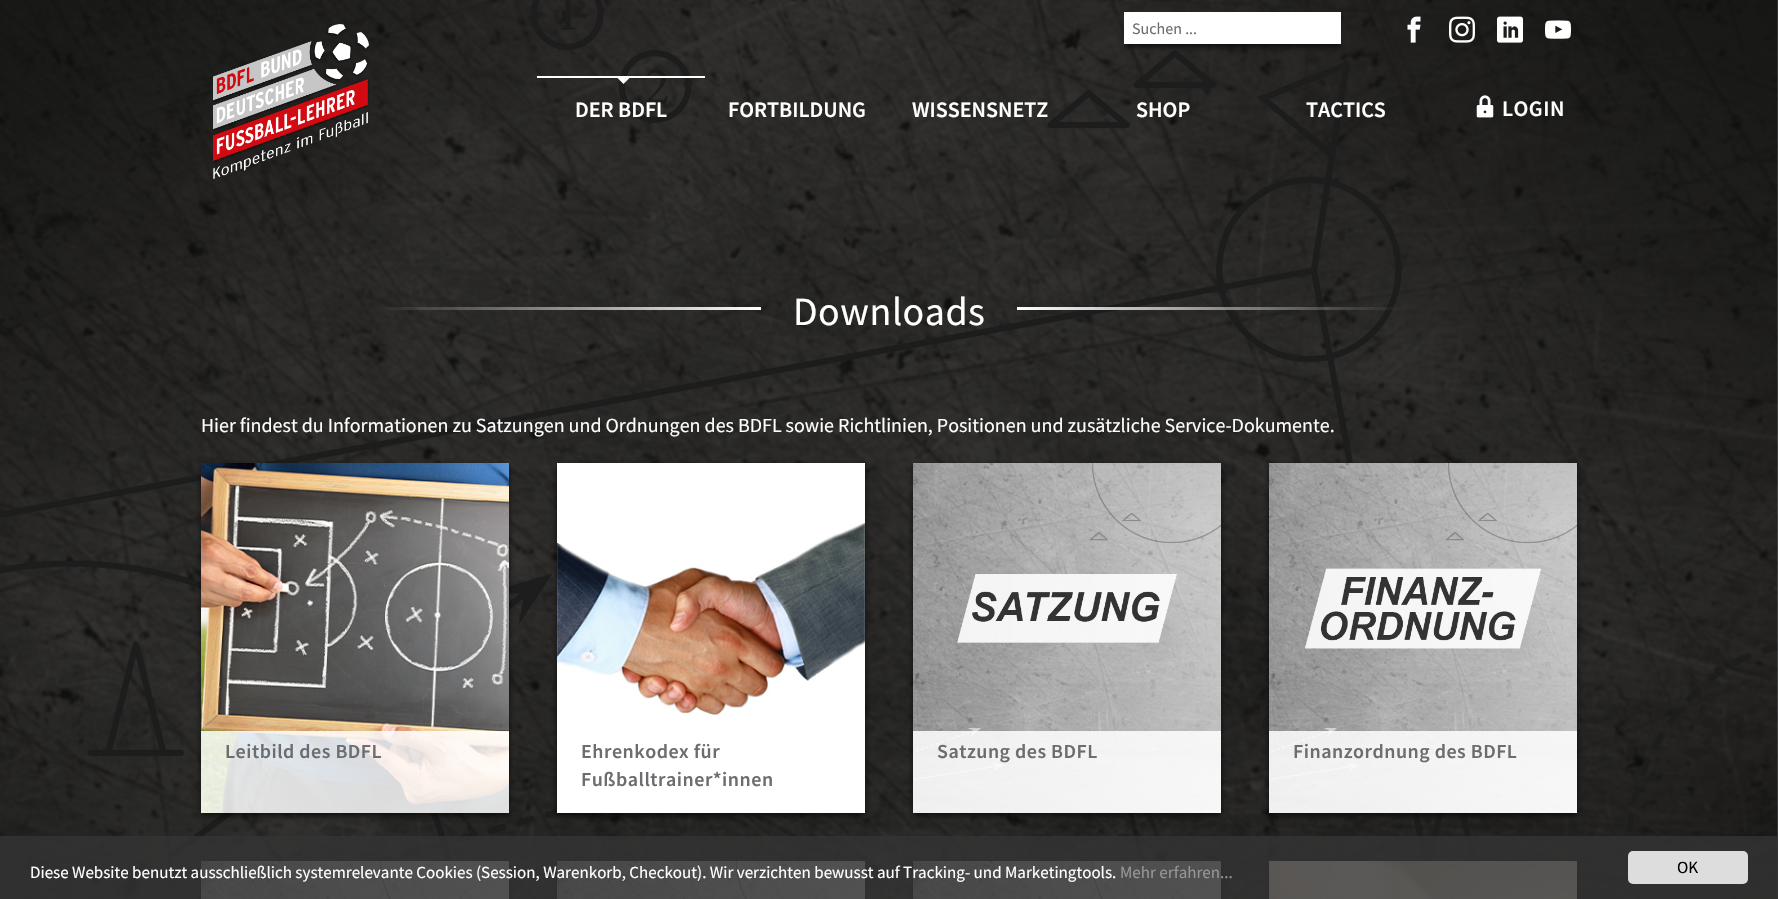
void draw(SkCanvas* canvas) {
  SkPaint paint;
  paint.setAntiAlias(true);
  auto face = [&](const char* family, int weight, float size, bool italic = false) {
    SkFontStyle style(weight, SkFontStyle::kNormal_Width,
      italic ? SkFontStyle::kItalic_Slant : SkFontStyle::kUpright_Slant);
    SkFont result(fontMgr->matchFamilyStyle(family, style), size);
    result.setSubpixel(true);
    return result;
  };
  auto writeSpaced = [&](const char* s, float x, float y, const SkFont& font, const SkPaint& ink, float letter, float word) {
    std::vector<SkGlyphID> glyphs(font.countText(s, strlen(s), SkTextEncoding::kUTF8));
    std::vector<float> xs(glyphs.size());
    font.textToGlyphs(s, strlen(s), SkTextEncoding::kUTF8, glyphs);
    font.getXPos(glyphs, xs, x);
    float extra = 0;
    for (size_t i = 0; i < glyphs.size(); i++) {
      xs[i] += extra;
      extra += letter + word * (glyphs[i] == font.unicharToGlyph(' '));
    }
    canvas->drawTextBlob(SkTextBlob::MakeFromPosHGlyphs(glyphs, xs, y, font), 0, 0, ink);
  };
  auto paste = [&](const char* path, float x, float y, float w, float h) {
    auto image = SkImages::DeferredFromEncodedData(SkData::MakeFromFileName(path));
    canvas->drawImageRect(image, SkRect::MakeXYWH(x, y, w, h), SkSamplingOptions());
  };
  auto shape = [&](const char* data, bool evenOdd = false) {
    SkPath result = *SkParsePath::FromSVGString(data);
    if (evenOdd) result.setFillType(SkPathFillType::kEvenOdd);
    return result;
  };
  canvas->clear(0xffffffff);
  paste("img/1.png", 0, 0, 1778, 899);
  paste("img/2.png", 213, 24, 156, 155);
  canvas->save();
  canvas->clipRect(SkRect::MakeXYWH(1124, 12, 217, 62));
  paint.setColor(0xa6000000);
  paint.setMaskFilter(SkMaskFilter::MakeBlur(kNormal_SkBlurStyle, 3));
  canvas->drawRect(SkRect::MakeXYWH(1124, 15, 217, 32), paint);
  paint.setMaskFilter(nullptr);
  canvas->restore();
  paint.setColor(0xffffffff);
  canvas->drawRect(SkRect::MakeXYWH(1124, 12, 217, 32), paint);
  paste("img/3.png", 1407, 16, 14, 27);
  paste("img/4.png", 1449, 16, 26, 27);
  paste("img/5.png", 1497, 16, 26, 27);
  paste("img/6.png", 1545, 20, 26, 19);
  canvas->drawRect(SkRect::MakeXYWH(537, 76, 168, 2), paint);
  canvas->drawPath(shape("M617.5 78H629.5L623.5 84Z"), paint);
  paste("img/7.png", 1476, 95, 18, 23);
  paint.setColor(0xa6000000);
  paint.setMaskFilter(SkMaskFilter::MakeBlur(kNormal_SkBlurStyle, 3));
  canvas->drawRect(SkRect::MakeXYWH(201, 466, 308, 350), paint);
  paint.setMaskFilter(nullptr);
  paste("img/8.png", 201, 463, 308, 350);
  paint.setColor(0xd9ffffff);
  canvas->drawRect(SkRect::MakeXYWH(201, 731, 308, 82), paint);
  paint.setColor(0xa6000000);
  paint.setMaskFilter(SkMaskFilter::MakeBlur(kNormal_SkBlurStyle, 3));
  canvas->drawRect(SkRect::MakeXYWH(557, 466, 308, 350), paint);
  paint.setMaskFilter(nullptr);
  paint.setColor(0xffffffff);
  canvas->drawRect(SkRect::MakeXYWH(557, 463, 308, 350), paint);
  paste("img/9.png", 557, 523, 308, 192);
  paint.setColor(0xa6000000);
  paint.setMaskFilter(SkMaskFilter::MakeBlur(kNormal_SkBlurStyle, 3));
  canvas->drawRect(SkRect::MakeXYWH(913, 466, 308, 350), paint);
  paint.setMaskFilter(nullptr);
  paste("img/10.png", 913, 463, 308, 350);
  paint.setColor(0xd9ffffff);
  canvas->drawRect(SkRect::MakeXYWH(913, 731, 308, 82), paint);
  paint.setColor(0xa6000000);
  paint.setMaskFilter(SkMaskFilter::MakeBlur(kNormal_SkBlurStyle, 3));
  canvas->drawRect(SkRect::MakeXYWH(1269, 466, 308, 350), paint);
  paint.setMaskFilter(nullptr);
  paste("img/11.png", 1269, 463, 308, 350);
  paint.setColor(0xd9ffffff);
  canvas->drawRect(SkRect::MakeXYWH(1269, 731, 308, 82), paint);
  paint.setColor(0xa6000000);
  paint.setMaskFilter(SkMaskFilter::MakeBlur(kNormal_SkBlurStyle, 3));
  canvas->drawRect(SkRect::MakeXYWH(201, 864, 308, 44), paint);
  paint.setMaskFilter(nullptr);
  paste("img/12.png", 201, 861, 308, 38);
  paint.setMaskFilter(SkMaskFilter::MakeBlur(kNormal_SkBlurStyle, 3));
  canvas->drawRect(SkRect::MakeXYWH(557, 864, 308, 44), paint);
  paint.setMaskFilter(nullptr);
  paste("img/13.png", 557, 861, 308, 38);
  paint.setMaskFilter(SkMaskFilter::MakeBlur(kNormal_SkBlurStyle, 3));
  canvas->drawRect(SkRect::MakeXYWH(913, 864, 308, 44), paint);
  paint.setMaskFilter(nullptr);
  paste("img/14.png", 913, 861, 308, 38);
  paint.setMaskFilter(SkMaskFilter::MakeBlur(kNormal_SkBlurStyle, 3));
  canvas->drawRect(SkRect::MakeXYWH(1269, 864, 308, 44), paint);
  paint.setMaskFilter(nullptr);
  paste("img/15.png", 1269, 861, 308, 38);
  paint.setColor(0xcc333333);
  canvas->drawRect(SkRect::MakeXYWH(0, 836, 1778, 63), paint);
  paint.setColor(0xffdddddd);
  canvas->drawRoundRect(SkRect::MakeXYWH(1628, 851, 120, 33), 5, 5, paint);
  auto f0 = face("Source Sans Pro", 400, 16);
  paint.setColor(0xff6c6d70);
  canvas->drawString("Suchen ...", 1132, 34, f0, paint);
  auto f1 = face("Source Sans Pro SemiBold", 600, 22);
  paint.setColor(0xffffffff);
  {
    const struct { const char* s; float x, y; } items[] = {
      {"DER BDFL", 575, 117},
      {"FORTBILDUNG", 728, 117},
      {"WISSENSNETZ", 912, 117},
      {"SHOP", 1136, 117},
      {"TACTICS", 1306, 117},
    };
    for (auto [s, x, y] : items) {
      canvas->drawString(s, x, y, f1, paint);
    }
  }
  writeSpaced("LOGIN", 1502, 116, f1, paint, 0.5f, 0);
  auto f2 = face("Source Sans Pro", 400, 40);
  writeSpaced("Downloads", 793, 325, f2, paint, 0.5f, 0);
  auto f3 = face("Source Sans Pro", 400, 20);
  canvas->drawString("Hier findest du Informationen zu Satzungen und Ordnungen des BDFL sowie Richtlinien, Positionen und zusätzliche Service-Dokumente.", 201, 432, f3, paint);
  auto f4 = face("Source Sans Pro SemiBold", 600, 20);
  paint.setColor(0xff6c6d70);
  {
    const struct { const char* s; float x, y; } items[] = {
      {"Leitbild des BDFL", 225, 758},
      {"Ehrenkodex für", 581, 758},
      {"Fußballtrainer*innen", 581, 786},
      {"Satzung des BDFL", 937, 758},
      {"Finanzordnung des BDFL", 1293, 758},
    };
    for (auto [s, x, y] : items) {
      writeSpaced(s, x, y, f4, paint, 0.5f, 0);
    }
  }
  auto f5 = face("Source Sans Pro", 400, 17);
  paint.setColor(0xffffffff);
  canvas->drawString("Diese Website benutzt ausschließlich systemrelevante Cookies (Session, Warenkorb, Checkout). Wir verzichten bewusst auf Tracking- und Marketingtools.", 30, 878, f5, paint);
  paint.setColor(0xff969696);
  canvas->drawString("Mehr erfahren...", 1120, 878, f5, paint);
  paint.setColor(0xff000000);
  canvas->drawString("OK", 1677, 873, f5, paint);
}
